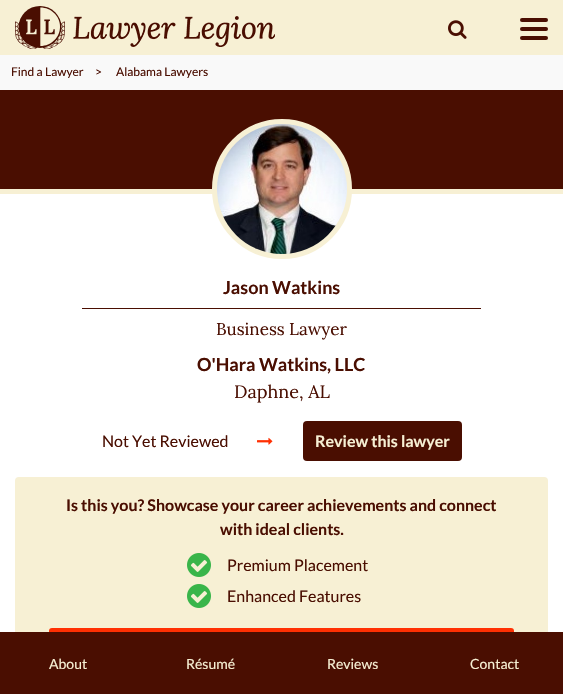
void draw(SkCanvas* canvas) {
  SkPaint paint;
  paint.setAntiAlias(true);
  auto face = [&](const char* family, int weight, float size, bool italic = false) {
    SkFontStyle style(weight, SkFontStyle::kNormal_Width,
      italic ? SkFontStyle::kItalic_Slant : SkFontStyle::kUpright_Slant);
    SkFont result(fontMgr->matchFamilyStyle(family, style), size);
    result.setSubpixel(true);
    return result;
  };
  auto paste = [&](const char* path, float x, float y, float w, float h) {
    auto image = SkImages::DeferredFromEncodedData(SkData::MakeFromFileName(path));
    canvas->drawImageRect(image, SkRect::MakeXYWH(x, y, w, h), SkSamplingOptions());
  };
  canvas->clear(0xffffffff);
  paint.setColor(0xfff7f0d4);
  canvas->drawRect(SkRect::MakeXYWH(0, 0, 563, 55), paint);
  paste("img/1.png", 15, 6, 50, 43);
  paste("img/2.png", 73, 16, 202, 31);
  paste("img/3.png", 448, 20, 19, 19);
  paint.setColor(0xff4a0e01);
  canvas->drawRoundRect(SkRect::MakeXYWH(520, 18, 28, 4), 2, 2, paint);
  canvas->drawRoundRect(SkRect::MakeXYWH(520, 27, 28, 4), 2, 2, paint);
  canvas->drawRoundRect(SkRect::MakeXYWH(520, 36, 28, 4), 2, 2, paint);
  {
    const struct { float x, y, w, h; SkColor color; } items[] = {
      {0, 55, 563, 35, 0xfff9f9f9},
      {0, 90, 563, 99, 0xff4a0e01},
      {0, 189, 563, 5, 0xfff7f0d4},
    };
    for (auto [x, y, w, h, color] : items) {
      paint.setColor(color);
      canvas->drawRect(SkRect::MakeXYWH(x, y, w, h), paint);
    }
  }
  canvas->drawCircle(282, 189, 67.5f, paint);
  paint.setStroke(true);
  paint.setStrokeWidth(5);
  canvas->drawCircle(282, 189, 67.5f, paint);
  paste("img/4.png", 217, 124, 130, 130);
  paint.setStroke(false);
  paint.setColor(0xff4a0e01);
  canvas->drawRect(SkRect::MakeXYWH(82, 308, 399, 1), paint);
  paste("img/5.png", 257, 437, 16, 8);
  canvas->drawRoundRect(SkRect::MakeXYWH(303, 421, 159, 40), 4, 4, paint);
  paint.setColor(0xfff7f0d4);
  canvas->drawRoundRect(SkRect::MakeXYWH(15, 477, 533, 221), 4, 4, paint);
  paste("img/6.png", 187, 553, 24, 24);
  paste("img/6.png", 187, 584, 24, 24);
  paint.setColor(0xffff3003);
  canvas->drawRoundRect(SkRect::MakeXYWH(49, 628, 465, 60), 3, 3, paint);
  paint.setColor(0xff4a0e01);
  canvas->drawRect(SkRect::MakeXYWH(0, 632, 563, 62), paint);
  auto f0 = face("Lato", 400, 12);
  {
    const struct { const char* s; float x, y; } items[] = {
      {"Find a Lawyer", 11, 76},
      {">", 95, 76},
      {"Alabama Lawyers", 116, 76},
    };
    for (auto [s, x, y] : items) {
      canvas->drawString(s, x, y, f0, paint);
    }
  }
  auto f1 = face("Lato", 700, 18);
  canvas->drawString("Jason Watkins", 223, 294, f1, paint);
  auto f2 = face("Lora", 400, 17);
  canvas->drawString("Business Lawyer", 216, 335, f2, paint);
  canvas->drawString("O'Hara Watkins, LLC", 197, 371, f1, paint);
  auto f3 = face("Lora", 400, 18);
  canvas->drawString("Daphne, AL", 234, 398, f3, paint);
  auto f4 = face("Lato", 400, 16);
  canvas->drawString("Not Yet Reviewed", 102, 447, f4, paint);
  auto f5 = face("Lato", 700, 16);
  paint.setColor(0xfff7f0d4);
  canvas->drawString("Review this lawyer", 315, 447, f5, paint);
  paint.setColor(0xff4a0e01);
  canvas->drawString("Is this you? Showcase your career achievements and connect", 66, 511, f5, paint);
  canvas->drawString("with ideal clients.", 220, 535, f5, paint);
  canvas->drawString("Premium Placement", 227, 571, f4, paint);
  canvas->drawString("Enhanced Features", 227, 602, f4, paint);
  auto f6 = face("Lato", 400, 14);
  paint.setColor(0xfff7f0d4);
  {
    const struct { const char* s; float x, y; } items[] = {
      {"About", 49, 669},
      {"Résumé", 186, 669},
      {"Reviews", 327, 669},
      {"Contact", 470, 669},
    };
    for (auto [s, x, y] : items) {
      canvas->drawString(s, x, y, f6, paint);
    }
  }
}
